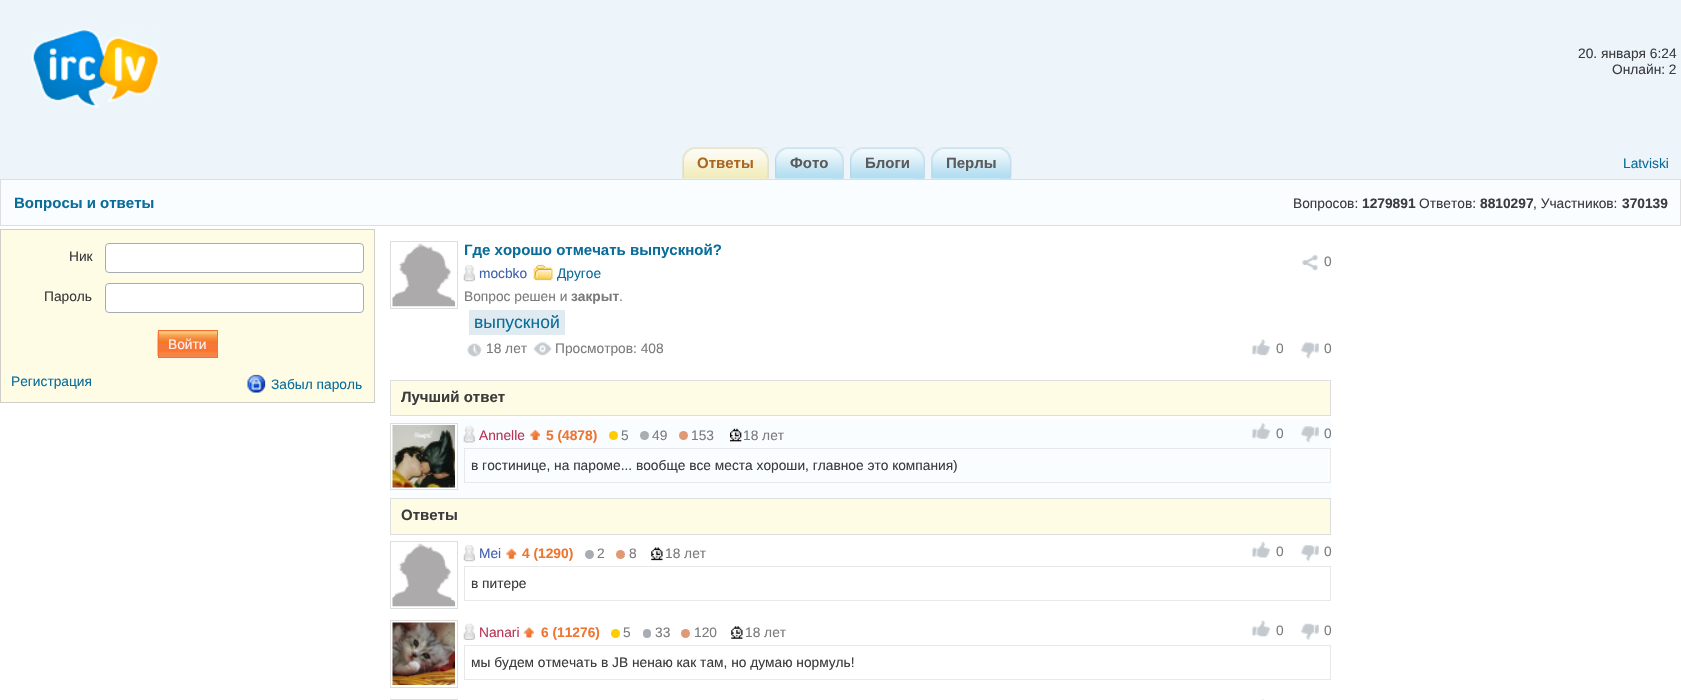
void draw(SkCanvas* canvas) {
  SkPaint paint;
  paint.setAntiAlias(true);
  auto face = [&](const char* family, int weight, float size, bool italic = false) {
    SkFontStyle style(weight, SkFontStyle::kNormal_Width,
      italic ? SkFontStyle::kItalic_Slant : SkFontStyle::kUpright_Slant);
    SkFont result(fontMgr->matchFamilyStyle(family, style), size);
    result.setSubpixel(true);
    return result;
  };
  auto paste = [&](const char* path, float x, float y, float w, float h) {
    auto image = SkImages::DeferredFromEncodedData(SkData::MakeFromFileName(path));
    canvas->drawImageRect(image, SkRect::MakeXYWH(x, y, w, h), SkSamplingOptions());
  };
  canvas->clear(0xffffffff);
  paint.setColor(0xffedf5fa);
  canvas->drawRect(SkRect::MakeXYWH(0, 0, 1681, 179), paint);
  paste("img/1.png", 31, 29, 129, 79);
  paste("img/2.png", 682, 147, 87, 32);
  paste("img/3.png", 757, 147, 12, 32);
  paste("img/4.png", 775, 147, 69, 32);
  paste("img/5.png", 832, 147, 12, 32);
  paste("img/6.png", 850, 147, 75, 32);
  paste("img/7.png", 914, 147, 11, 32);
  paste("img/8.png", 931, 147, 81, 32);
  paste("img/9.png", 1000, 147, 12, 32);
  paint.setColor(0xfff9fdff);
  canvas->drawRect(SkRect::MakeXYWH(0.5f, 179.5f, 1680, 46), paint);
  paint.setStroke(true);
  paint.setStrokeWidth(1);
  paint.setColor(0xffdedede);
  canvas->drawRect(SkRect::MakeXYWH(0.5f, 179.5f, 1680, 46), paint);
  paint.setStroke(false);
  paint.setColor(0xfffefce5);
  canvas->drawRect(SkRect::MakeXYWH(0.5f, 229.5f, 374, 173), paint);
  paint.setStroke(true);
  paint.setColor(0xffd1cec9);
  canvas->drawRect(SkRect::MakeXYWH(0.5f, 229.5f, 374, 173), paint);
  paint.setStroke(false);
  paint.setColor(0xffffffff);
  canvas->drawRoundRect(SkRect::MakeXYWH(105.5f, 243.5f, 258, 29), 3.5f, 3.5f, paint);
  paint.setStroke(true);
  paint.setColor(0xffa5acb2);
  canvas->drawRoundRect(SkRect::MakeXYWH(105.5f, 243.5f, 258, 29), 3.5f, 3.5f, paint);
  paint.setStroke(false);
  paint.setColor(0xffffffff);
  canvas->drawRoundRect(SkRect::MakeXYWH(105.5f, 283.5f, 258, 29), 3.5f, 3.5f, paint);
  paint.setStroke(true);
  paint.setColor(0xffa5acb2);
  canvas->drawRoundRect(SkRect::MakeXYWH(105.5f, 283.5f, 258, 29), 3.5f, 3.5f, paint);
  paint.setStroke(false);
  paint.setColor(0xfffa8152);
  canvas->drawRect(SkRect::MakeXYWH(159, 331, 58, 26), paint);
  paste("img/10.png", 157, 331, 60, 26);
  paint.setStroke(true);
  paint.setColor(0xfff37431);
  canvas->drawRect(SkRect::MakeXYWH(158.5f, 330.5f, 59, 27), paint);
  paste("img/11.png", 247, 374, 19, 19);
  paint.setColor(0xffdddddd);
  canvas->drawRect(SkRect::MakeXYWH(390.5f, 241.5f, 67, 67), paint);
  paste("img/12.png", 392, 243, 63, 64);
  paste("img/13.png", 1302, 255, 16, 16);
  paste("img/14.png", 463, 265, 12, 17);
  paste("img/15.png", 533, 264, 20, 17);
  paint.setStroke(false);
  paint.setColor(0xffe0eaf1);
  canvas->drawRect(SkRect::MakeXYWH(469, 310, 96, 25), paint);
  paste("img/16.png", 467, 343, 15, 14);
  paste("img/17.png", 533, 342, 19, 14);
  paste("img/18.png", 1252, 339, 19, 17);
  paste("img/19.png", 1301, 342, 18, 17);
  paint.setColor(0xfffefce5);
  canvas->drawRect(SkRect::MakeXYWH(390.5f, 380.5f, 940, 35), paint);
  paint.setStroke(true);
  paint.setColor(0xffdedede);
  canvas->drawRect(SkRect::MakeXYWH(390.5f, 380.5f, 940, 35), paint);
  paint.setStroke(false);
  paint.setColor(0xfff9fdff);
  canvas->drawRect(SkRect::MakeXYWH(390, 419, 941, 79), paint);
  paint.setColor(0xffffffff);
  canvas->drawRect(SkRect::MakeXYWH(390.5f, 423.5f, 67, 66), paint);
  paint.setStroke(true);
  paint.setColor(0xffdddddd);
  canvas->drawRect(SkRect::MakeXYWH(390.5f, 423.5f, 67, 66), paint);
  paste("img/20.png", 392, 425, 63, 63);
  paste("img/21.png", 463, 426, 12, 17);
  paste("img/22.png", 530, 430, 10, 10);
  paint.setStroke(false);
  paint.setColor(0xffffcc00);
  canvas->drawCircle(613.5f, 435.5f, 4.5f, paint);
  paint.setColor(0xffa8acb3);
  canvas->drawCircle(644.5f, 435.5f, 4.5f, paint);
  paint.setColor(0xffe19874);
  canvas->drawCircle(683.5f, 435.5f, 4.5f, paint);
  paste("img/23.png", 730, 428, 12, 14);
  paste("img/24.png", 1252, 423, 19, 16);
  paste("img/25.png", 1301, 426, 18, 17);
  paint.setStroke(true);
  paint.setColor(0xffe8e8e8);
  canvas->drawRect(SkRect::MakeXYWH(464.5f, 448.5f, 866, 34), paint);
  paint.setStroke(false);
  paint.setColor(0xfffefce5);
  canvas->drawRect(SkRect::MakeXYWH(390.5f, 498.5f, 940, 36), paint);
  paint.setStroke(true);
  paint.setColor(0xffdedede);
  canvas->drawRect(SkRect::MakeXYWH(390.5f, 498.5f, 940, 36), paint);
  paint.setColor(0xffdddddd);
  canvas->drawRect(SkRect::MakeXYWH(390.5f, 541.5f, 67, 67), paint);
  paste("img/12.png", 392, 543, 63, 64);
  paste("img/14.png", 463, 545, 12, 17);
  paste("img/26.png", 506, 548, 11, 11);
  paint.setStroke(false);
  paint.setColor(0xffa8acb3);
  canvas->drawCircle(589.5f, 554.5f, 4.5f, paint);
  paint.setColor(0xffe19874);
  canvas->drawCircle(620.5f, 554.5f, 4.5f, paint);
  paste("img/27.png", 651, 547, 12, 14);
  paste("img/28.png", 1252, 541, 19, 17);
  paste("img/29.png", 1301, 545, 18, 17);
  paint.setStroke(true);
  paint.setColor(0xffe8e8e8);
  canvas->drawRect(SkRect::MakeXYWH(464.5f, 566.5f, 866, 34), paint);
  paint.setColor(0xffdddddd);
  canvas->drawRect(SkRect::MakeXYWH(390.5f, 620.5f, 67, 67), paint);
  paste("img/30.png", 392, 622, 63, 63);
  paste("img/31.png", 463, 623, 12, 17);
  paste("img/32.png", 523, 627, 11, 11);
  paint.setStroke(false);
  paint.setColor(0xffffcc00);
  canvas->drawCircle(615.5f, 633.5f, 4.5f, paint);
  paint.setColor(0xffa8acb3);
  canvas->drawRoundRect(SkRect::MakeXYWH(643, 629, 8, 9), 4, 4, paint);
  paint.setColor(0xffe19874);
  canvas->drawCircle(685.5f, 633.5f, 4.5f, paint);
  paste("img/33.png", 731, 626, 12, 13);
  paste("img/34.png", 1252, 620, 19, 17);
  paste("img/35.png", 1301, 623, 18, 17);
  paint.setStroke(true);
  paint.setColor(0xffe8e8e8);
  canvas->drawRect(SkRect::MakeXYWH(464.5f, 645.5f, 866, 34), paint);
  paint.setColor(0xffdddddd);
  canvas->drawRect(SkRect::MakeXYWH(390.5f, 699.5f, 67, 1), paint);
  paste("img/36.png", 1261, 699, 3, 1);
  auto f0 = face("Liberation Sans", 400, 13.75f);
  paint.setStroke(false);
  paint.setColor(0xff3c3c3e);
  canvas->drawString("20. января 6:24", 1578, 58, f0, paint);
  canvas->drawString("Онлайн: 2", 1612, 74, f0, paint);
  auto f1 = face("Liberation Sans", 700, 15);
  paint.setColor(0xffab6620);
  canvas->drawString("Ответы", 697, 168, f1, paint);
  paint.setColor(0xff5b5b5b);
  {
    const struct { const char* s; float x, y; } items[] = {
      {"Фото", 790, 168},
      {"Блоги", 865, 168},
      {"Перлы", 946, 168},
    };
    for (auto [s, x, y] : items) {
      canvas->drawString(s, x, y, f1, paint);
    }
  }
  paint.setColor(0xff0b6d9a);
  canvas->drawString("Latviski", 1623, 168, f0, paint);
  canvas->drawString("Вопросы и ответы", 14, 208, f1, paint);
  paint.setColor(0xff3c3c3e);
  canvas->drawString("Вопросов:", 1293, 208, f0, paint);
  auto f2 = face("Liberation Sans", 700, 13.75f);
  canvas->drawString("1279891", 1362, 208, f2, paint);
  canvas->drawString("Ответов:", 1419, 208, f0, paint);
  canvas->drawString("8810297", 1480, 208, f2, paint);
  canvas->drawString(", Участников:", 1533, 208, f0, paint);
  canvas->drawString("370139", 1622, 208, f2, paint);
  canvas->drawString("Ник", 69, 261, f0, paint);
  canvas->drawString("Пароль", 44, 301, f0, paint);
  paint.setColor(0xffffeeee);
  canvas->drawString("Войти", 168, 349, f0, paint);
  paint.setColor(0xff0b6d9a);
  canvas->drawString("Регистрация", 11, 386, f0, paint);
  canvas->drawString("Забыл пароль", 271, 389, f0, paint);
  canvas->drawString("Где хорошо отмечать выпускной?", 464, 255, f1, paint);
  paint.setColor(0xff7b7b7b);
  canvas->drawString("0", 1324, 266, f0, paint);
  paint.setColor(0xff4160af);
  canvas->drawString("mocbko", 479, 278, f0, paint);
  paint.setColor(0xff0b6d9a);
  canvas->drawString("Другое", 557, 278, f0, paint);
  paint.setColor(0xff7b7b7b);
  canvas->drawString("Вопрос решен и", 464, 301, f0, paint);
  canvas->drawString("закрыт", 571, 301, f2, paint);
  canvas->drawString(".", 619, 301, f0, paint);
  auto f3 = face("Liberation Sans", 400, 17.5f);
  paint.setColor(0xff0b6d9a);
  canvas->drawString("выпускной", 474, 328, f3, paint);
  paint.setColor(0xff7b7b7b);
  {
    const struct { const char* s; float x, y; } items[] = {
      {"18 лет", 486, 353},
      {"Просмотров: 408", 555, 353},
      {"0", 1276, 353},
      {"0", 1324, 353},
    };
    for (auto [s, x, y] : items) {
      canvas->drawString(s, x, y, f0, paint);
    }
  }
  paint.setColor(0xff3c3c3e);
  canvas->drawString("Лучший ответ", 401, 402, f1, paint);
  paint.setColor(0xffb83554);
  canvas->drawString("Annelle", 479, 440, f0, paint);
  paint.setColor(0xffef7430);
  canvas->drawString("5 (4878)", 546, 440, f2, paint);
  paint.setColor(0xff7b7b7b);
  {
    const struct { const char* s; float x, y; } items[] = {
      {"5", 621, 440},
      {"49", 652, 440},
      {"153", 691, 440},
      {"18 лет", 743, 440},
      {"0", 1276, 438},
      {"0", 1324, 438},
    };
    for (auto [s, x, y] : items) {
      canvas->drawString(s, x, y, f0, paint);
    }
  }
  paint.setColor(0xff3c3c3e);
  canvas->drawString("в гостинице, на пароме... вообще все места хороши, главное это компания)", 471, 470, f0, paint);
  canvas->drawString("Ответы", 401, 520, f1, paint);
  paint.setColor(0xff4160af);
  canvas->drawString("Mei", 479, 558, f0, paint);
  paint.setColor(0xffef7430);
  canvas->drawString("4 (1290)", 522, 558, f2, paint);
  paint.setColor(0xff7b7b7b);
  {
    const struct { const char* s; float x, y; } items[] = {
      {"2", 597, 558},
      {"8", 629, 558},
      {"18 лет", 665, 558},
      {"0", 1276, 556},
      {"0", 1324, 556},
    };
    for (auto [s, x, y] : items) {
      canvas->drawString(s, x, y, f0, paint);
    }
  }
  paint.setColor(0xff3c3c3e);
  canvas->drawString("в питере", 471, 588, f0, paint);
  paint.setColor(0xffb83554);
  canvas->drawString("Nanari", 479, 637, f0, paint);
  paint.setColor(0xffef7430);
  canvas->drawString("6 (11276)", 541, 637, f2, paint);
  paint.setColor(0xff7b7b7b);
  {
    const struct { const char* s; float x, y; } items[] = {
      {"5", 623, 637},
      {"33", 655, 637},
      {"120", 694, 637},
      {"18 лет", 745, 637},
      {"0", 1276, 635},
      {"0", 1324, 635},
    };
    for (auto [s, x, y] : items) {
      canvas->drawString(s, x, y, f0, paint);
    }
  }
  paint.setColor(0xff3c3c3e);
  canvas->drawString("мы будем отмечать в JB ненаю как там, но думаю нормуль!", 471, 667, f0, paint);
}
